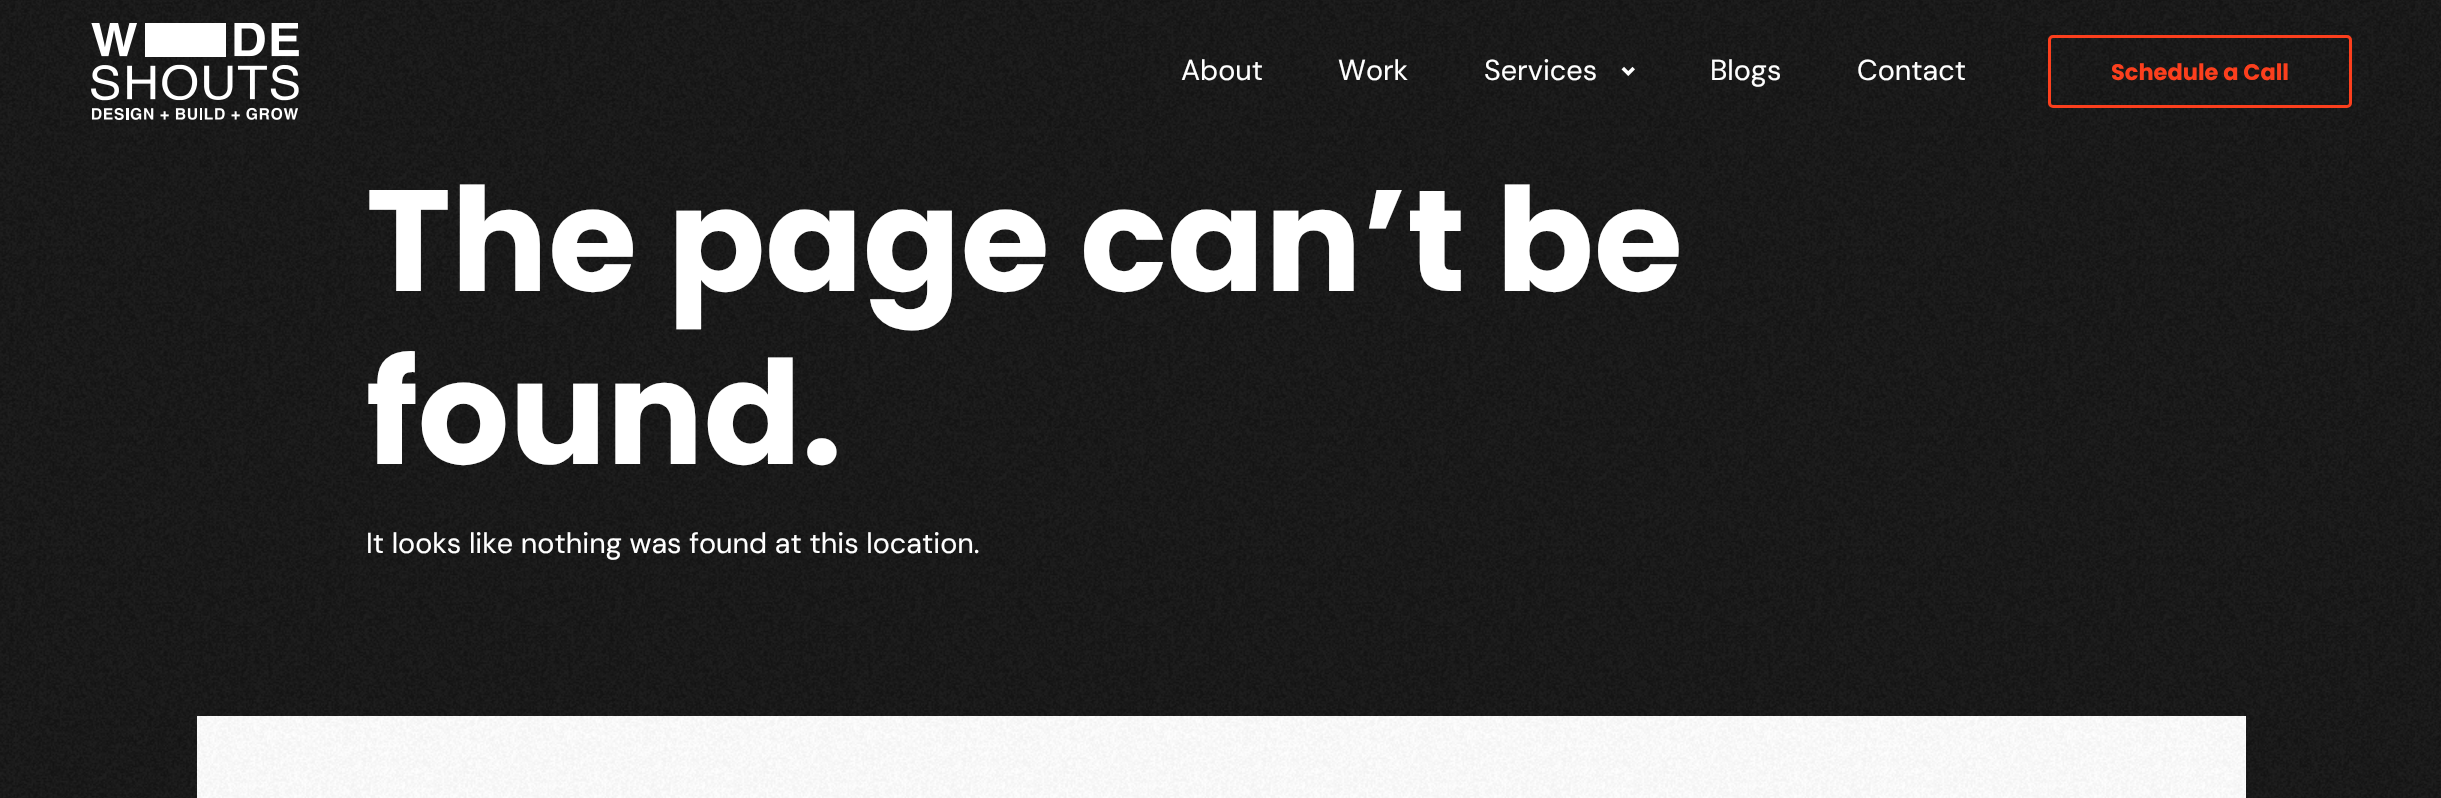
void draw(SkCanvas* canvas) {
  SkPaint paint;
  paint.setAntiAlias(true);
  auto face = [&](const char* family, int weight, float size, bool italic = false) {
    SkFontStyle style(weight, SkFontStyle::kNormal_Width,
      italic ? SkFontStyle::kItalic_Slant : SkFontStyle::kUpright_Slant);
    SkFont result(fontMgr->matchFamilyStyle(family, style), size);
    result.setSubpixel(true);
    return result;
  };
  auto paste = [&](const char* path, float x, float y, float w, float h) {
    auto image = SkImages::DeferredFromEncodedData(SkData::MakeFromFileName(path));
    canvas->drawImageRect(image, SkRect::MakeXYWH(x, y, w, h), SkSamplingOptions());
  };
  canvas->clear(0xff141414);
  paste("img/1.png", 0, 0, 2441, 798);
  paste("img/2.png", 91, 23, 208, 97);
  paste("img/3.png", 1621, 66, 14, 10);
  paint.setStroke(true);
  paint.setStrokeWidth(3);
  paint.setColor(0xfffc3f1d);
  canvas->drawRoundRect(SkRect::MakeXYWH(2049.5f, 36.5f, 301, 70), 3.5f, 3.5f, paint);
  paint.setStroke(false);
  paint.setColor(0xffffffff);
  canvas->drawRect(SkRect::MakeXYWH(197, 716, 2049, 82), paint);
  paste("img/4.png", 196, 715, 2050, 83);
  auto f0 = face("DM Sans", 400, 28.8f);
  {
    const struct { const char* s; float x, y; } items[] = {
      {"About", 1181, 80},
      {"Work", 1338, 80},
      {"Services", 1484, 80},
      {"Blogs", 1710, 80},
      {"Contact", 1857, 80},
    };
    for (auto [s, x, y] : items) {
      canvas->drawString(s, x, y, f0, paint);
    }
  }
  auto f1 = face("Poppins", 700, 22.5f);
  paint.setColor(0xfffc3f1d);
  canvas->drawString("Schedule a Call", 2111, 80, f1, paint);
  auto f2 = face("Poppins", 700, 144);
  paint.setColor(0xffffffff);
  canvas->drawString("The page can’t be", 366, 291, f2, paint);
  canvas->drawString("found.", 366, 464, f2, paint);
  canvas->drawString("It looks like nothing was found at this location.", 366, 553, f0, paint);
}
